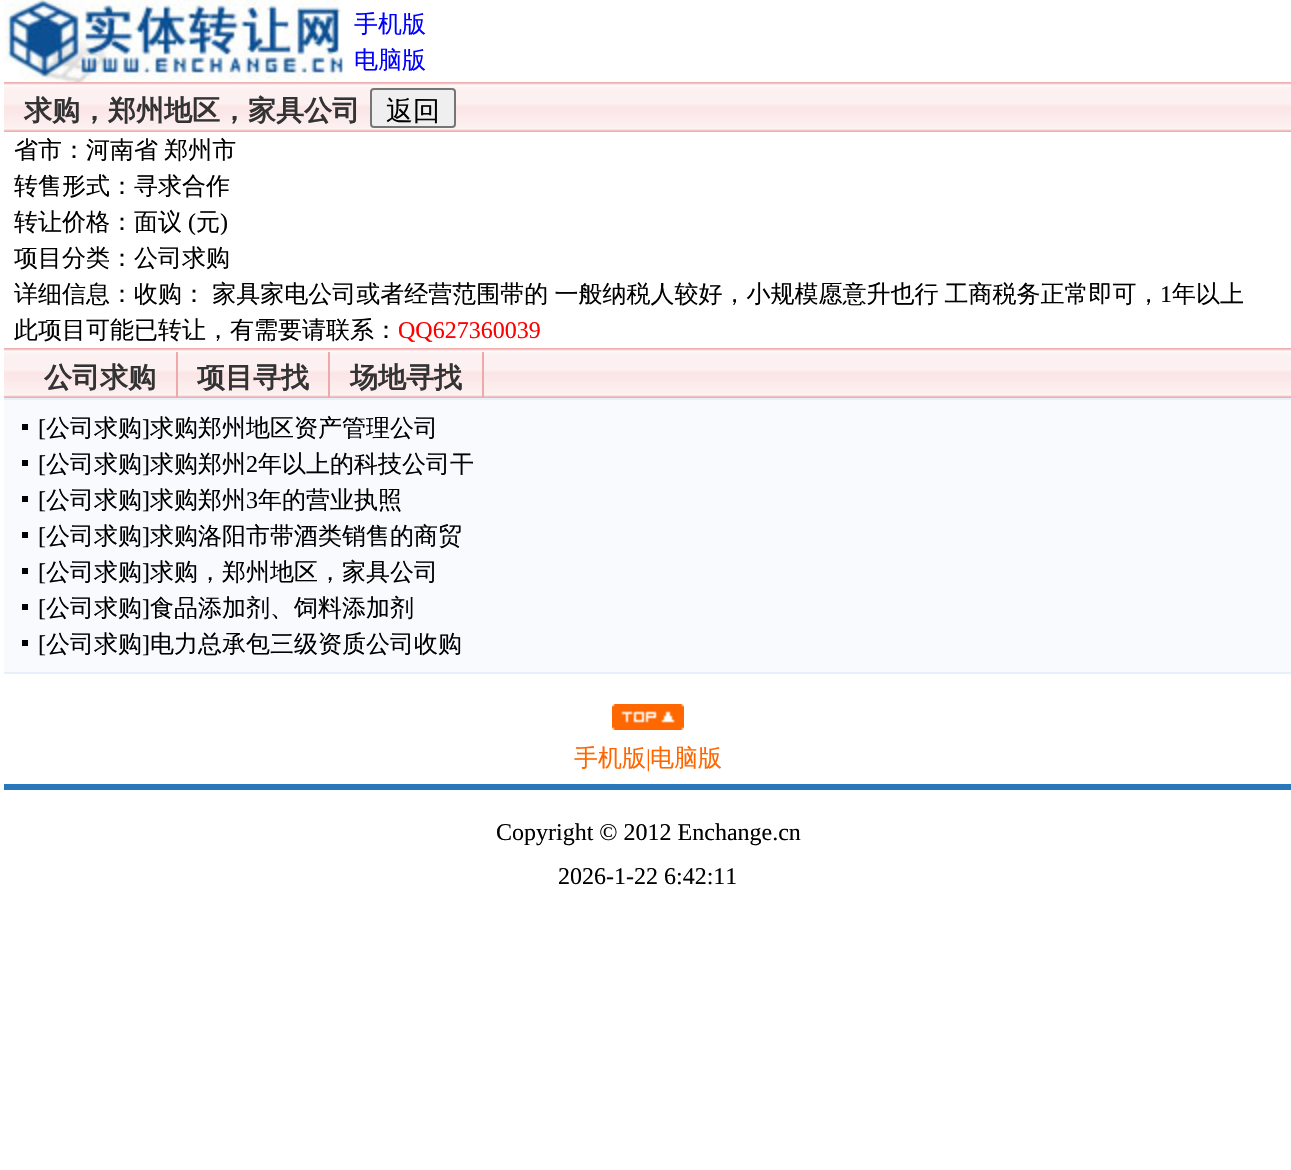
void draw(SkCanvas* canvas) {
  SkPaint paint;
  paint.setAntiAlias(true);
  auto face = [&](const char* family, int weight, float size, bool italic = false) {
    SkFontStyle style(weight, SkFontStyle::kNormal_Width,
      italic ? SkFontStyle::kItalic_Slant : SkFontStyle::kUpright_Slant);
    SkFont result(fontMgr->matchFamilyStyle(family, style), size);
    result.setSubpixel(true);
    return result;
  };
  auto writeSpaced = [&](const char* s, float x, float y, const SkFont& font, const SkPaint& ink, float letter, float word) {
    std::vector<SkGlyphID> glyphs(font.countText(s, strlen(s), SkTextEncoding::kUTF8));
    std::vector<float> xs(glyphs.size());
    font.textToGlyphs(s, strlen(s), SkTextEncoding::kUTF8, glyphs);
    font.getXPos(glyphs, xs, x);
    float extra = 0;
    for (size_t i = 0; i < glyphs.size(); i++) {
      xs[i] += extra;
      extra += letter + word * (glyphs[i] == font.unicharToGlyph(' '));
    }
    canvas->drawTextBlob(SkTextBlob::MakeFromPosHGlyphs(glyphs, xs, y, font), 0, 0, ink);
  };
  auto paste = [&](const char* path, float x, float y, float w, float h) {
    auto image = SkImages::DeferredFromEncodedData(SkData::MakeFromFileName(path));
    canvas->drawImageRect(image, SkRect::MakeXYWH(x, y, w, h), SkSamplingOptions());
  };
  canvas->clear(0xffffffff);
  paste("img/1.png", 4, 0, 340, 82);
  paste("img/2.png", 4, 82, 1287, 50);
  paint.setColor(0xffefefef);
  canvas->drawRoundRect(SkRect::MakeXYWH(371, 89, 84, 38), 3, 3, paint);
  paint.setStroke(true);
  paint.setStrokeWidth(2);
  paint.setColor(0xff767676);
  canvas->drawRoundRect(SkRect::MakeXYWH(371, 89, 84, 38), 3, 3, paint);
  paste("img/2.png", 4, 348, 1287, 50);
  paint.setStroke(false);
  {
    const struct { float x, y, w, h; SkColor color; } items[] = {
      {176, 352, 2, 46, 0xffeeaaaa},
      {328, 352, 2, 46, 0xffeeaaaa},
      {482, 352, 2, 46, 0xffeeaaaa},
      {4, 400, 1287, 272, 0xfff9fafd},
      {4, 398, 1287, 2, 0xffe7f0fa},
      {4, 672, 1287, 2, 0xffe7f0fa},
      {22, 424, 6, 6, 0xff000000},
      {22, 460, 6, 6, 0xff000000},
      {22, 496, 6, 6, 0xff000000},
      {22, 532, 6, 6, 0xff000000},
      {22, 568, 6, 6, 0xff000000},
      {22, 604, 6, 6, 0xff000000},
      {22, 640, 6, 6, 0xff000000},
    };
    for (auto [x, y, w, h, color] : items) {
      paint.setColor(color);
      canvas->drawRect(SkRect::MakeXYWH(x, y, w, h), paint);
    }
  }
  paste("img/3.png", 612, 704, 72, 26);
  paint.setColor(0xff2877ba);
  canvas->drawRect(SkRect::MakeXYWH(4, 784, 1287, 6), paint);
  auto f0 = face("WenQuanYi Zen Hei", 500, 24);
  paint.setColor(0xff0000ff);
  canvas->drawString("手机版", 354, 32, f0, paint);
  canvas->drawString("电脑版", 354, 68, f0, paint);
  auto f1 = face("WenQuanYi Zen Hei", 700, 28);
  paint.setColor(0xff333333);
  canvas->drawString("求购，郑州地区，家具公司", 24, 120, f1, paint);
  auto f2 = face("WenQuanYi Zen Hei", 500, 27);
  paint.setColor(0xff000000);
  canvas->drawString("返回", 386, 120, f2, paint);
  writeSpaced("省市：河南省 郑州市", 14, 158, f0, paint, 0, -1);
  canvas->drawString("转售形式：寻求合作", 14, 194, f0, paint);
  canvas->drawString("转让价格：面议", 14, 230, f0, paint);
  auto f3 = face("Liberation Serif", 400, 24);
  canvas->drawString("(", 188, 230, f3, paint);
  canvas->drawString("元", 196, 230, f0, paint);
  canvas->drawString(")", 220, 230, f3, paint);
  canvas->drawString("项目分类：公司求购", 14, 266, f0, paint);
  writeSpaced("详细信息：收购： 家具家电公司或者经营范围带的 一般纳税人较好，小规模愿意升也行 工商税务正常即可，", 14, 302, f0, paint, 0, -1);
  canvas->drawString("1", 1160, 302, f3, paint);
  canvas->drawString("年以上", 1172, 302, f0, paint);
  canvas->drawString("此项目可能已转让，有需要请联系：", 14, 338, f0, paint);
  paint.setColor(0xffff0000);
  canvas->drawString("QQ627360039", 398, 338, f3, paint);
  paint.setColor(0xff333333);
  {
    const struct { const char* s; float x, y; } items[] = {
      {"公司求购", 44, 387},
      {"项目寻找", 197, 387},
      {"场地寻找", 350, 387},
    };
    for (auto [s, x, y] : items) {
      canvas->drawString(s, x, y, f1, paint);
    }
  }
  paint.setColor(0xff000000);
  canvas->drawString("[", 38, 436, f3, paint);
  canvas->drawString("公司求购", 46, 436, f0, paint);
  canvas->drawString("]", 142, 436, f3, paint);
  canvas->drawString("求购郑州地区资产管理公司", 150, 436, f0, paint);
  canvas->drawString("[", 38, 472, f3, paint);
  canvas->drawString("公司求购", 46, 472, f0, paint);
  canvas->drawString("]", 142, 472, f3, paint);
  canvas->drawString("求购郑州", 150, 472, f0, paint);
  canvas->drawString("2", 246, 472, f3, paint);
  canvas->drawString("年以上的科技公司干", 258, 472, f0, paint);
  canvas->drawString("[", 38, 508, f3, paint);
  canvas->drawString("公司求购", 46, 508, f0, paint);
  canvas->drawString("]", 142, 508, f3, paint);
  canvas->drawString("求购郑州", 150, 508, f0, paint);
  canvas->drawString("3", 246, 508, f3, paint);
  canvas->drawString("年的营业执照", 258, 508, f0, paint);
  canvas->drawString("[", 38, 544, f3, paint);
  canvas->drawString("公司求购", 46, 544, f0, paint);
  canvas->drawString("]", 142, 544, f3, paint);
  canvas->drawString("求购洛阳市带酒类销售的商贸", 150, 544, f0, paint);
  canvas->drawString("[", 38, 580, f3, paint);
  canvas->drawString("公司求购", 46, 580, f0, paint);
  canvas->drawString("]", 142, 580, f3, paint);
  canvas->drawString("求购，郑州地区，家具公司", 150, 580, f0, paint);
  canvas->drawString("[", 38, 616, f3, paint);
  canvas->drawString("公司求购", 46, 616, f0, paint);
  canvas->drawString("]", 142, 616, f3, paint);
  canvas->drawString("食品添加剂、饲料添加剂", 150, 616, f0, paint);
  canvas->drawString("[", 38, 652, f3, paint);
  canvas->drawString("公司求购", 46, 652, f0, paint);
  canvas->drawString("]", 142, 652, f3, paint);
  canvas->drawString("电力总承包三级资质公司收购", 150, 652, f0, paint);
  paint.setColor(0xffff6600);
  canvas->drawString("手机版", 574, 766, f0, paint);
  canvas->drawString("|", 646, 766, f3, paint);
  canvas->drawString("电脑版", 650, 766, f0, paint);
  paint.setColor(0xff000000);
  canvas->drawString("Copyright © 2012 Enchange.cn", 496, 840, f3, paint);
  canvas->drawString("2026-1-22 6:42:11", 558, 884, f3, paint);
}
